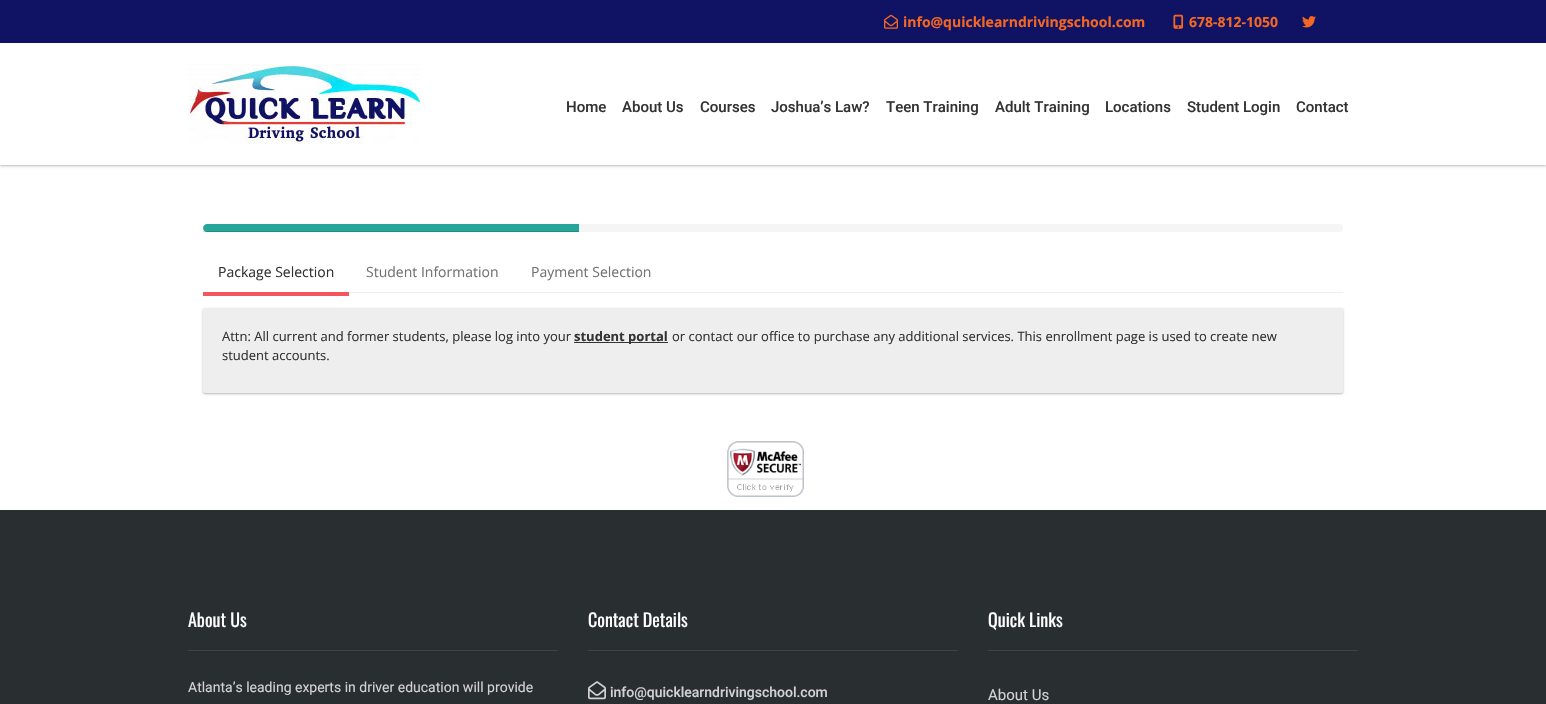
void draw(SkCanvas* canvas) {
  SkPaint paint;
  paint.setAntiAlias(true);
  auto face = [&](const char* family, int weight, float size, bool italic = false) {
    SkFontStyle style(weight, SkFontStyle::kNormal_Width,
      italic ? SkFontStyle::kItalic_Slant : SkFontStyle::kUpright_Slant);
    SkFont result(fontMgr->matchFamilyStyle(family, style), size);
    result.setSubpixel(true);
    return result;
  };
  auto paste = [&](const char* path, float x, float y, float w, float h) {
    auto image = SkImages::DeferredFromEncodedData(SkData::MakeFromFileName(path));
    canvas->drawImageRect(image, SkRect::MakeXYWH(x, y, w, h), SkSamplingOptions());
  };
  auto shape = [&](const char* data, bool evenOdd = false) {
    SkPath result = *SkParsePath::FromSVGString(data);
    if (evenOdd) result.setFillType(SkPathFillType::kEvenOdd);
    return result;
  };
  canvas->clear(0xffffffff);
  paint.setColor(0x2e000000);
  paint.setMaskFilter(SkMaskFilter::MakeBlur(kNormal_SkBlurStyle, 1));
  canvas->drawRect(SkRect::MakeXYWH(0, 1, 1546, 165), paint);
  paint.setMaskFilter(nullptr);
  paint.setColor(0x1a000000);
  paint.setMaskFilter(SkMaskFilter::MakeBlur(kNormal_SkBlurStyle, 1.5f));
  canvas->drawRect(SkRect::MakeXYWH(0, 1, 1546, 165), paint);
  paint.setMaskFilter(nullptr);
  paint.setColor(0xff101363);
  canvas->drawRect(SkRect::MakeXYWH(0, 0, 1546, 43), paint);
  paste("img/1.png", 884, 14, 14, 15);
  paste("img/2.png", 1173, 14, 11, 15);
  paste("img/3.png", 1302, 16, 14, 12);
  paint.setColor(0xffffffff);
  canvas->drawRect(SkRect::MakeXYWH(0, 43, 1546, 122), paint);
  paste("img/4.png", 188, 64, 232, 80);
  paint.setColor(0xfff5f5f5);
  canvas->drawRoundRect(SkRect::MakeXYWH(203, 224, 1140, 8), 4, 4, paint);
  paint.setColor(0xff26a69a);
  canvas->drawPath(shape("M207 224H579V232H207C205 232 203 230 203 228C203 226 205 224 207 224Z"), paint);
  {
    const struct { float x, y, w, h; SkColor color; } items[] = {
      {203, 231, 376, 1, 0x26000000},
      {203, 292, 146, 4, 0xfff3565d},
      {349, 292, 994, 1, 0xffeeeeee},
    };
    for (auto [x, y, w, h, color] : items) {
      paint.setColor(color);
      canvas->drawRect(SkRect::MakeXYWH(x, y, w, h), paint);
    }
  }
  paint.setColor(0x2e000000);
  paint.setMaskFilter(SkMaskFilter::MakeBlur(kNormal_SkBlurStyle, 1));
  canvas->drawRoundRect(SkRect::MakeXYWH(203, 309, 1140, 85), 2, 2, paint);
  paint.setMaskFilter(nullptr);
  paint.setColor(0x1a000000);
  paint.setMaskFilter(SkMaskFilter::MakeBlur(kNormal_SkBlurStyle, 1.5f));
  canvas->drawRoundRect(SkRect::MakeXYWH(203, 309, 1140, 85), 2, 2, paint);
  paint.setMaskFilter(nullptr);
  paint.setColor(0xffeeeeee);
  canvas->drawRoundRect(SkRect::MakeXYWH(203, 308, 1140, 85), 2, 2, paint);
  paint.setColor(0xff333333);
  canvas->drawRect(SkRect::MakeXYWH(574, 342, 94, 1), paint);
  paste("img/5.png", 727, 441, 77, 56);
  {
    const struct { float x, y, w, h; SkColor color; } items[] = {
      {0, 510, 1546, 194, 0xff292e31},
      {188, 650, 370, 1, 0xff3e4346},
      {588, 650, 370, 1, 0xff3e4346},
    };
    for (auto [x, y, w, h, color] : items) {
      paint.setColor(color);
      canvas->drawRect(SkRect::MakeXYWH(x, y, w, h), paint);
    }
  }
  paste("img/6.png", 588, 681, 18, 19);
  canvas->drawRect(SkRect::MakeXYWH(988, 650, 370, 1), paint);
  auto f0 = face("Open Sans", 700, 14);
  paint.setColor(0xfff46722);
  canvas->drawString("info@quicklearndrivingschool.com", 903, 27, f0, paint);
  canvas->drawString("678-812-1050", 1189, 27, f0, paint);
  auto f1 = face("Roboto", 500, 15);
  paint.setColor(0xff333333);
  {
    const struct { const char* s; float x, y; } items[] = {
      {"Home", 566, 112},
      {"About Us", 622, 112},
      {"Courses", 700, 112},
      {"Joshua’s Law?", 771, 112},
      {"Teen Training", 886, 112},
      {"Adult Training", 995, 112},
      {"Locations", 1105, 112},
      {"Student Login", 1187, 112},
      {"Contact", 1296, 112},
    };
    for (auto [s, x, y] : items) {
      canvas->drawString(s, x, y, f1, paint);
    }
  }
  auto f2 = face("Open Sans", 400, 14);
  canvas->drawString("Package Selection", 218, 277, f2, paint);
  paint.setColor(0xff737373);
  canvas->drawString("Student Information", 366, 277, f2, paint);
  canvas->drawString("Payment Selection", 531, 277, f2, paint);
  auto f3 = face("Open Sans", 400, 13);
  paint.setColor(0xff333333);
  canvas->drawString("Attn: All current and former students, please log into your", 222, 341, f3, paint);
  auto f4 = face("Open Sans", 700, 13);
  canvas->drawString("student portal", 574, 341, f4, paint);
  canvas->drawString("or contact our office to purchase any additional services. This enrollment page is used to create new", 672, 341, f3, paint);
  canvas->drawString("student accounts.", 222, 360, f3, paint);
  auto f5 = face("Oswald", 400, 18);
  paint.setColor(0xffffffff);
  canvas->drawString("About Us", 188, 627, f5, paint);
  auto f6 = face("Roboto", 400, 14);
  paint.setColor(0xffd2d2d2);
  canvas->drawString("Atlanta’s leading experts in driver education will provide", 188, 692, f6, paint);
  paint.setColor(0xffffffff);
  canvas->drawString("Contact Details", 588, 627, f5, paint);
  auto f7 = face("Roboto", 500, 14);
  paint.setColor(0xffd2d2d2);
  canvas->drawString("info@quicklearndrivingschool.com", 610, 697, f7, paint);
  paint.setColor(0xffffffff);
  canvas->drawString("Quick Links", 988, 627, f5, paint);
  auto f8 = face("Roboto", 400, 15);
  paint.setColor(0xffd2d2d2);
  canvas->drawString("About Us", 988, 700, f8, paint);
}
